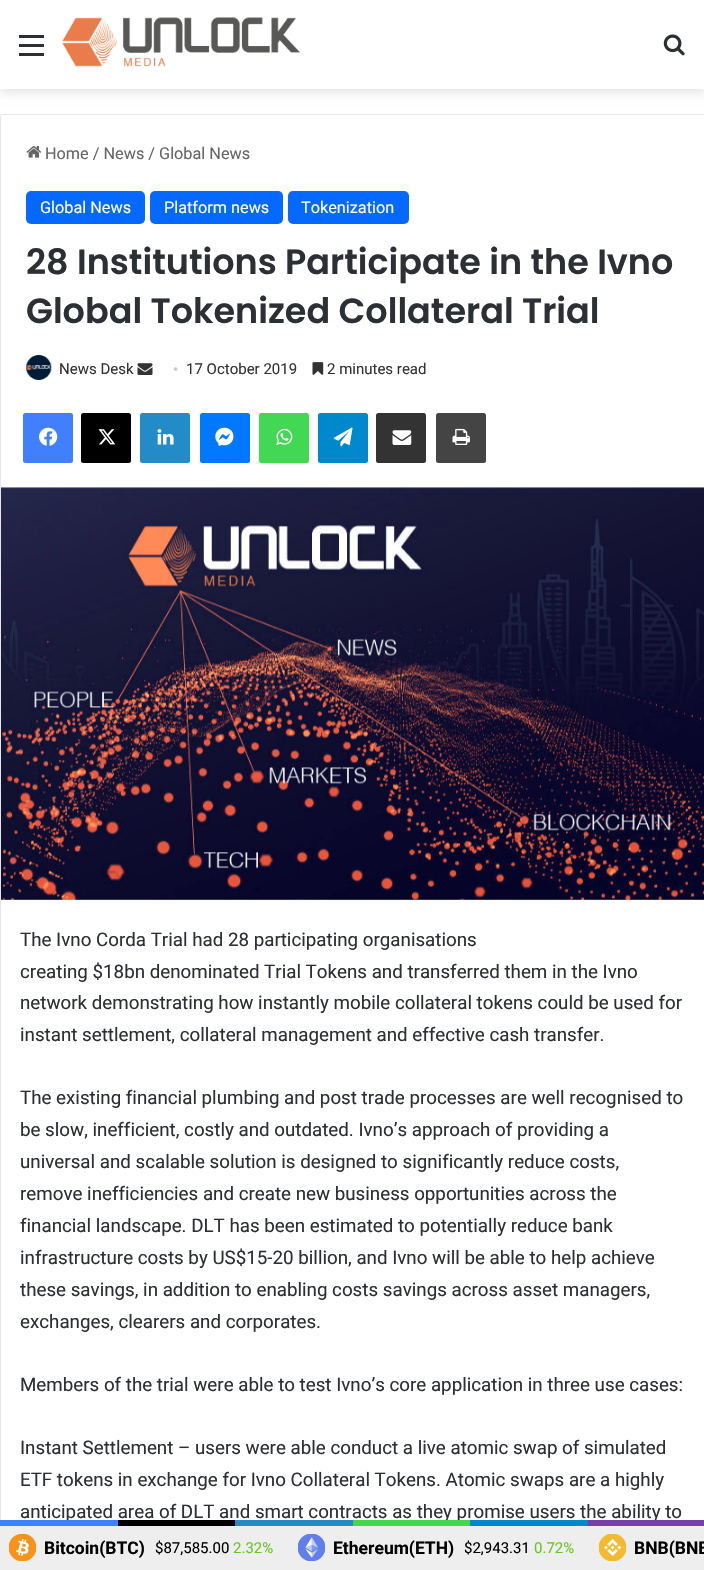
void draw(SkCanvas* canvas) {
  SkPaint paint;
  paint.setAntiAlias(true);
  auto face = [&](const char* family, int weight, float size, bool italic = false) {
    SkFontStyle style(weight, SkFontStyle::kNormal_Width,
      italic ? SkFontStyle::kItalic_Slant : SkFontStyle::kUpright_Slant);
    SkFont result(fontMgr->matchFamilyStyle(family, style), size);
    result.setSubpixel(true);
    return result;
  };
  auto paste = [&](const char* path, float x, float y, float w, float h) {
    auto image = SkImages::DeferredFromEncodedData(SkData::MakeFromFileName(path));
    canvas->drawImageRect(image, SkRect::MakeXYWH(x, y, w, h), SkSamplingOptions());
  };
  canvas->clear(0xffffffff);
  paint.setColor(0x1a000000);
  paint.setMaskFilter(SkMaskFilter::MakeBlur(kNormal_SkBlurStyle, 4.5f));
  canvas->drawRect(SkRect::MakeXYWH(0, 4, 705, 89), paint);
  paint.setMaskFilter(nullptr);
  {
    const struct { float x, y, w, h; SkColor color; } items[] = {
      {0, 0, 704, 89, 0xffffffff},
      {19, 44, 25, 3, 0xff2c2f34},
      {19, 35, 25, 3, 0xff2c2f34},
      {19, 53, 25, 3, 0xff2c2f34},
    };
    for (auto [x, y, w, h, color] : items) {
      paint.setColor(color);
      canvas->drawRect(SkRect::MakeXYWH(x, y, w, h), paint);
    }
  }
  paste("img/1.png", 62, 17, 238, 50);
  paste("img/2.png", 663, 34, 22, 22);
  paint.setStroke(true);
  paint.setStrokeWidth(1);
  paint.setColor(0xffe6e6e6);
  canvas->drawRoundRect(SkRect::MakeXYWH(0.5f, 114.5f, 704, 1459), 2, 2, paint);
  paste("img/3.png", 26, 146, 15, 12);
  paint.setStroke(false);
  paint.setColor(0xff0669ff);
  canvas->drawRoundRect(SkRect::MakeXYWH(26, 191, 119, 33), 5, 5, paint);
  canvas->drawRoundRect(SkRect::MakeXYWH(150, 191, 133, 33), 5, 5, paint);
  canvas->drawRoundRect(SkRect::MakeXYWH(288, 191, 121, 33), 5, 5, paint);
  paste("img/4.png", 26, 355, 26, 25);
  paste("img/5.png", 137, 363, 16, 12);
  paste("img/6.png", 312, 362, 12, 13);
  paint.setColor(0xff4080ff);
  canvas->drawRoundRect(SkRect::MakeXYWH(23, 413, 50, 50), 2.5f, 2.5f, paint);
  paste("img/7.png", 39, 427, 19, 19);
  paint.setColor(0xff000000);
  canvas->drawRoundRect(SkRect::MakeXYWH(81, 413, 50, 50), 2.5f, 2.5f, paint);
  paste("img/8.png", 98, 429, 18, 16);
  paint.setColor(0xff238cc8);
  canvas->drawRoundRect(SkRect::MakeXYWH(140, 413, 50, 50), 2.5f, 2.5f, paint);
  paste("img/9.png", 157, 429, 17, 16);
  paint.setColor(0xff0078ff);
  canvas->drawRoundRect(SkRect::MakeXYWH(200, 413, 50, 50), 2.5f, 2.5f, paint);
  paste("img/10.png", 215, 427, 19, 19);
  paint.setColor(0xff43d854);
  canvas->drawRoundRect(SkRect::MakeXYWH(259, 413, 50, 50), 2.5f, 2.5f, paint);
  paste("img/11.png", 276, 428, 17, 17);
  paint.setColor(0xff0088cc);
  canvas->drawRoundRect(SkRect::MakeXYWH(318, 413, 50, 50), 2.5f, 2.5f, paint);
  paste("img/12.png", 333, 427, 20, 20);
  paint.setColor(0xff333333);
  canvas->drawRoundRect(SkRect::MakeXYWH(376, 413, 50, 50), 2.5f, 2.5f, paint);
  paste("img/13.png", 392, 430, 20, 15);
  paint.setColor(0xff444444);
  canvas->drawRoundRect(SkRect::MakeXYWH(436, 413, 50, 50), 2.5f, 2.5f, paint);
  paste("img/14.png", 452, 428, 18, 17);
  paste("img/15.png", 1, 487, 703, 413);
  paint.setColor(0xffeeeeee);
  canvas->drawRect(SkRect::MakeXYWH(0, 1526, 704, 44), paint);
  paste("img/16.png", 9, 1534, 27, 27);
  paste("img/17.png", 298, 1534, 27, 27);
  paste("img/18.png", 599, 1534, 27, 27);
  auto f0 = face("Roboto", 400, 16.25f);
  paint.setColor(0xff666666);
  canvas->drawString("Home / News / Global News", 45, 159, f0, paint);
  paint.setColor(0xffffffff);
  {
    const struct { const char* s; float x, y; } items[] = {
      {"Global News", 40, 213},
      {"Platform news", 164, 213},
      {"Tokenization", 301, 213},
    };
    for (auto [s, x, y] : items) {
      canvas->drawString(s, x, y, f0, paint);
    }
  }
  auto f1 = face("Poppins", 600, 35);
  paint.setColor(0xff2c2f34);
  canvas->drawString("28 Institutions Participate in the Ivno", 26, 274, f1, paint);
  canvas->drawString("Global Tokenized Collateral Trial", 26, 323, f1, paint);
  auto f2 = face("Roboto", 400, 15);
  paint.setColor(0xff333333);
  canvas->drawString("News Desk", 59, 374, f2, paint);
  auto f3 = face("Liberation Serif", 400, 15);
  paint.setColor(0xffcccccc);
  canvas->drawString("•", 173, 374, f3, paint);
  paint.setColor(0xff333333);
  canvas->drawString("17 October 2019", 186, 374, f2, paint);
  canvas->drawString("2 minutes read", 327, 374, f2, paint);
  auto f4 = face("Roboto", 400, 18.75f);
  paint.setColor(0xff2c2f34);
  {
    const struct { const char* s; float x, y; } items[] = {
      {"The Ivno Corda Trial had 28 participating organisations", 20, 946},
      {"creating $18bn denominated Trial Tokens and transferred them in the Ivno", 20, 978},
      {"network demonstrating how instantly mobile collateral tokens could be used for", 20, 1009},
      {"instant settlement, collateral management and effective cash transfer.", 20, 1041},
      {"The existing financial plumbing and post trade processes are well recognised to", 20, 1104},
      {"be slow, inefficient, costly and outdated. Ivno’s approach of providing a", 20, 1136},
      {"universal and scalable solution is designed to significantly reduce costs,", 20, 1168},
      {"remove inefficiencies and create new business opportunities across the", 20, 1200},
      {"financial landscape. DLT has been estimated to potentially reduce bank", 20, 1232},
      {"infrastructure costs by US$15-20 billion, and Ivno will be able to help achieve", 20, 1264},
      {"these savings, in addition to enabling costs savings across asset managers,", 20, 1296},
      {"exchanges, clearers and corporates.", 20, 1328},
      {"Members of the trial were able to test Ivno’s core application in three use cases:", 20, 1391},
      {"Instant Settlement – users were able conduct a live atomic swap of simulated", 20, 1454},
      {"ETF tokens in exchange for Ivno Collateral Tokens. Atomic swaps are a highly", 20, 1486},
      {"anticipated area of DLT and smart contracts as they promise users the ability to", 20, 1518},
    };
    for (auto [s, x, y] : items) {
      canvas->drawString(s, x, y, f4, paint);
    }
  }
  {
    const struct { float x, y, w, h; SkColor color; } items[] = {
      {0, 1520, 118, 6, 0xff4080ff},
      {118, 1520, 117, 6, 0xff000000},
      {235, 1520, 118, 6, 0xff238cc8},
      {353, 1520, 117, 6, 0xff43d854},
      {470, 1520, 118, 6, 0xff0088cc},
      {588, 1520, 116, 6, 0xff773ead},
    };
    for (auto [x, y, w, h, color] : items) {
      paint.setColor(color);
      canvas->drawRect(SkRect::MakeXYWH(x, y, w, h), paint);
    }
  }
  auto f5 = face("Roboto", 700, 17.5f);
  paint.setColor(0xff000000);
  canvas->drawString("Bitcoin(BTC)", 44, 1554, f5, paint);
  canvas->drawString("$87,585.00", 155, 1553, f2, paint);
  paint.setColor(0xff67c624);
  canvas->drawString("2.32%", 233, 1553, f2, paint);
  paint.setColor(0xff000000);
  canvas->drawString("Ethereum(ETH)", 333, 1554, f5, paint);
  canvas->drawString("$2,943.31", 464, 1553, f2, paint);
  paint.setColor(0xff67c624);
  canvas->drawString("0.72%", 534, 1553, f2, paint);
  paint.setColor(0xff000000);
  canvas->drawString("BNB(BNB", 634, 1554, f5, paint);
}
